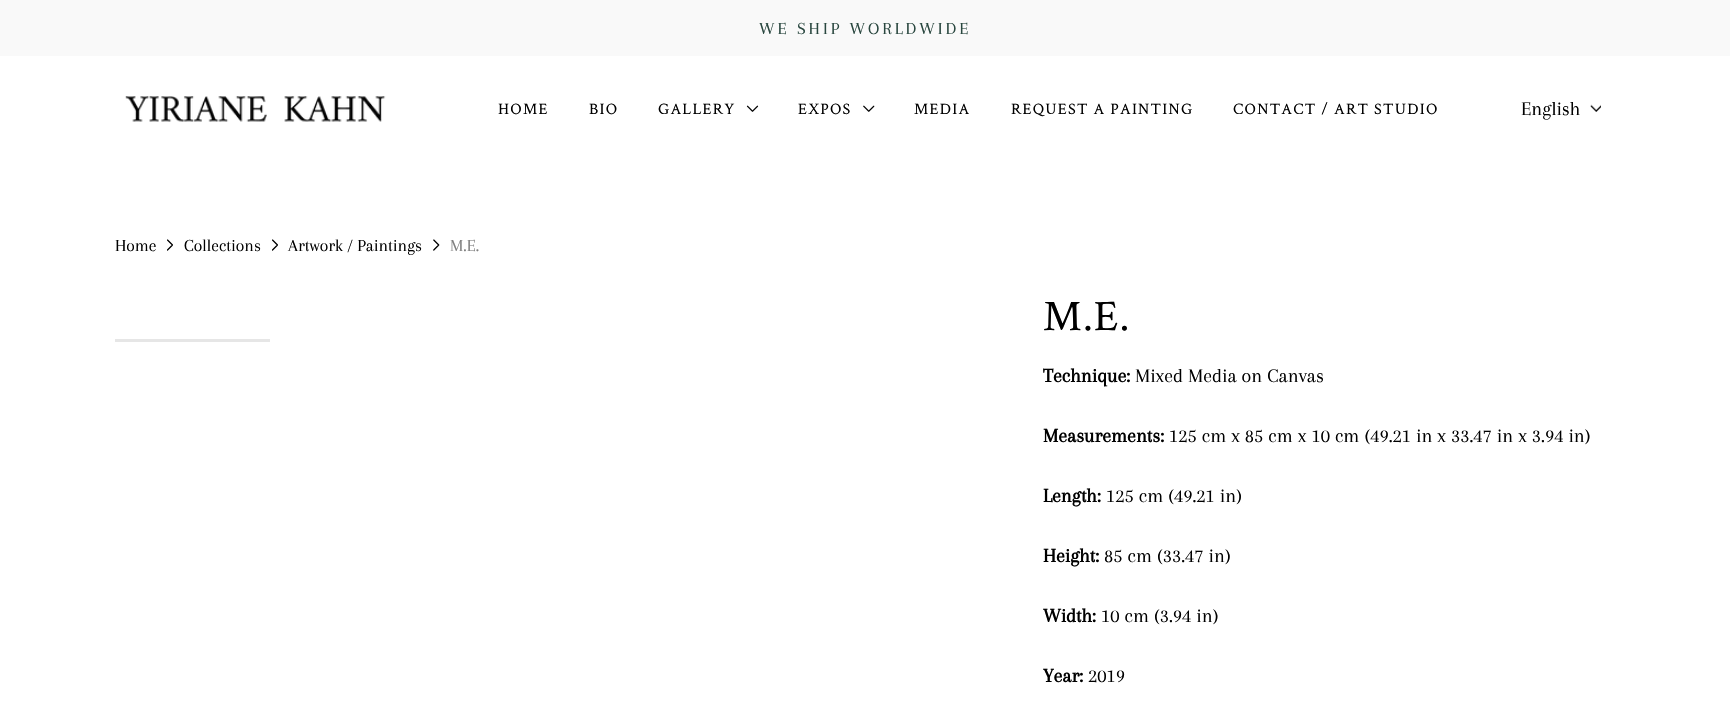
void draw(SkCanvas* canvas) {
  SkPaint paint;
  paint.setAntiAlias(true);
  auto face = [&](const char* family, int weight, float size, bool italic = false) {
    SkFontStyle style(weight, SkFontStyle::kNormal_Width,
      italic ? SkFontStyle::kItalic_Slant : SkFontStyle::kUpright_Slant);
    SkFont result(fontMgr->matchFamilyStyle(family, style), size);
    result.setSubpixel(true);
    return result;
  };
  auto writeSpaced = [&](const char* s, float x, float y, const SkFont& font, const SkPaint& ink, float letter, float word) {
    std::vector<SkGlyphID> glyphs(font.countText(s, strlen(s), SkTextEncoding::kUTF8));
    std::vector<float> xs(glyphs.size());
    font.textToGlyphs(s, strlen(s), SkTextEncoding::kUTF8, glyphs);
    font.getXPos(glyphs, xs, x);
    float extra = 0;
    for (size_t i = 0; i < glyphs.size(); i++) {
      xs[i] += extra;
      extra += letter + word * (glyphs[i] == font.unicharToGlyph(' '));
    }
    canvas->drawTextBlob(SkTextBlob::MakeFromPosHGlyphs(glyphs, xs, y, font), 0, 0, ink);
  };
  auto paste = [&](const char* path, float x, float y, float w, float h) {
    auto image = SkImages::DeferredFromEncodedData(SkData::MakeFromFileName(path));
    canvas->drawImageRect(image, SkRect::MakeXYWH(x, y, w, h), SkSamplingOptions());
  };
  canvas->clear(0xffffffff);
  paint.setColor(0xfff9f9f9);
  canvas->drawRect(SkRect::MakeXYWH(0, 0, 1730, 56), paint);
  paste("img/1.png", 125, 96, 261, 26);
  paste("img/2.png", 746, 105, 13, 7);
  paste("img/3.png", 863, 105, 12, 7);
  paste("img/4.png", 1590, 104, 11, 8);
  paste("img/5.png", 167, 239, 6, 12);
  paste("img/5.png", 272, 239, 6, 12);
  paste("img/6.png", 433, 239, 7, 12);
  paint.setColor(0xffe6e6e6);
  canvas->drawRect(SkRect::MakeXYWH(115, 339, 155, 3), paint);
  auto f0 = face("Arapey", 400, 17.5f);
  paint.setColor(0xff29473f);
  writeSpaced("WE SHIP WORLDWIDE", 759, 34, f0, paint, 3, 0);
  auto f1 = face("Crimson Text", 400, 16);
  paint.setColor(0xff000000);
  {
    const struct { const char* s; float x, y; } items[] = {
      {"HOME", 498, 114},
      {"BIO", 589, 114},
      {"GALLERY", 658, 114},
      {"EXPOS", 798, 114},
      {"MEDIA", 914, 114},
      {"REQUEST A PAINTING", 1011, 114},
      {"CONTACT / ART STUDIO", 1233, 114},
    };
    for (auto [s, x, y] : items) {
      writeSpaced(s, x, y, f1, paint, 1.25f, 0);
    }
  }
  auto f2 = face("Arapey", 400, 20);
  canvas->drawString("English", 1521, 115, f2, paint);
  {
    const struct { const char* s; float x, y; } items[] = {
      {"Home", 115, 251},
      {"Collections", 184, 251},
      {"Artwork / Paintings", 288, 251},
    };
    for (auto [s, x, y] : items) {
      canvas->drawString(s, x, y, f0, paint);
    }
  }
  paint.setColor(0xff808080);
  canvas->drawString("M.E.", 450, 251, f0, paint);
  auto f3 = face("Crimson Text", 400, 43.5f);
  paint.setColor(0xff000000);
  writeSpaced("M.E.", 1043, 330, f3, paint, 1.25f, 0);
  auto f4 = face("Arapey", 700, 20);
  canvas->drawString("Technique:", 1043, 382, f4, paint);
  canvas->drawString("Mixed Media on Canvas", 1135, 382, f2, paint);
  canvas->drawString("Measurements:", 1043, 442, f4, paint);
  canvas->drawString("125 cm x 85 cm x 10 cm (49.21 in x 33.47 in x 3.94 in)", 1169, 442, f2, paint);
  canvas->drawString("Length:", 1043, 502, f4, paint);
  canvas->drawString("125 cm (49.21 in)", 1106, 502, f2, paint);
  canvas->drawString("Height:", 1043, 562, f4, paint);
  canvas->drawString("85 cm (33.47 in)", 1104, 562, f2, paint);
  canvas->drawString("Width:", 1043, 622, f4, paint);
  canvas->drawString("10 cm (3.94 in)", 1101, 622, f2, paint);
  canvas->drawString("Year:", 1043, 682, f4, paint);
  canvas->drawString("2019", 1088, 682, f2, paint);
}
